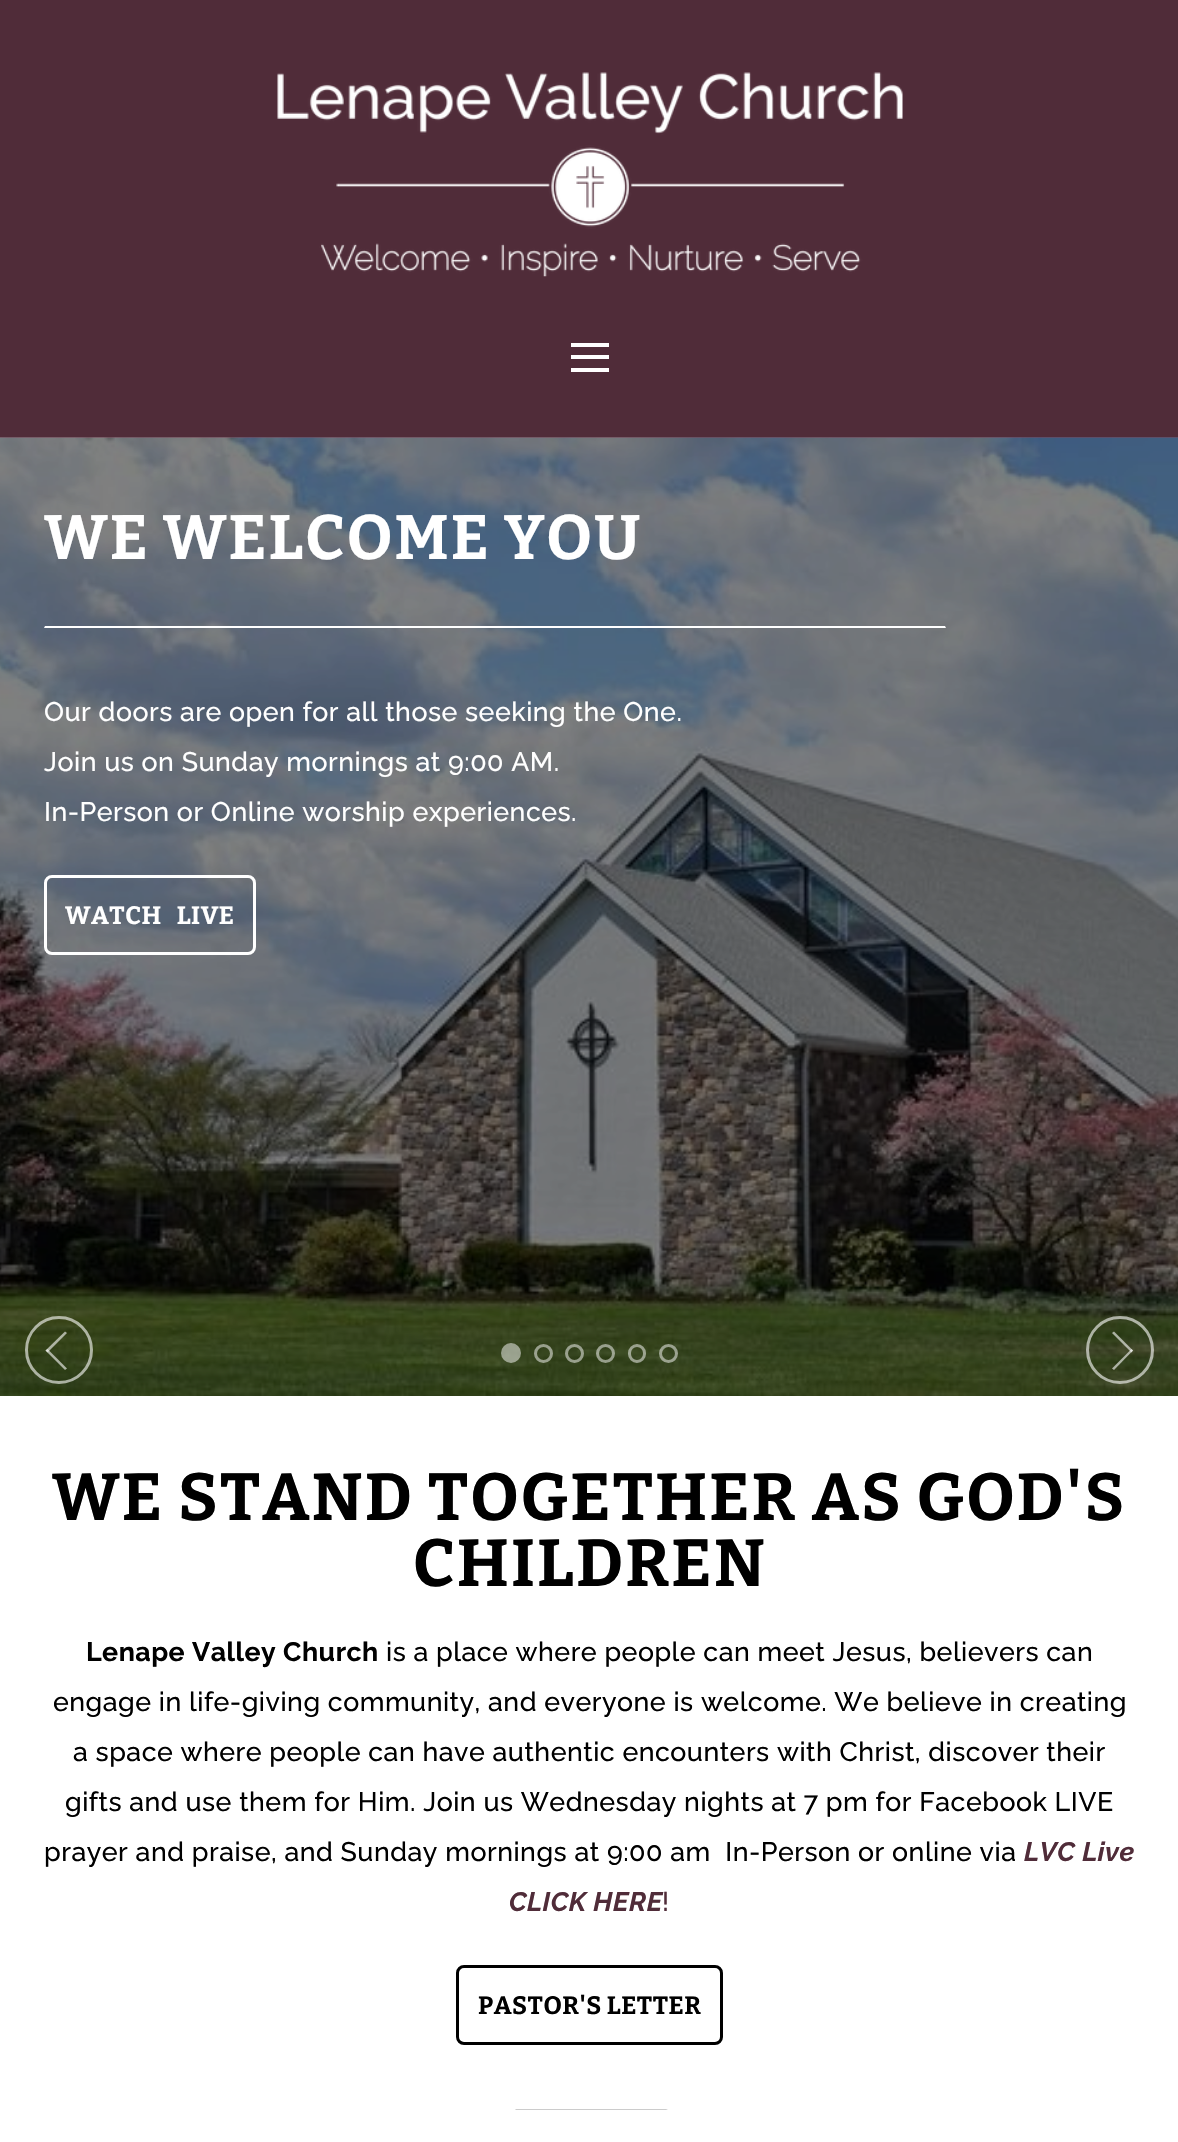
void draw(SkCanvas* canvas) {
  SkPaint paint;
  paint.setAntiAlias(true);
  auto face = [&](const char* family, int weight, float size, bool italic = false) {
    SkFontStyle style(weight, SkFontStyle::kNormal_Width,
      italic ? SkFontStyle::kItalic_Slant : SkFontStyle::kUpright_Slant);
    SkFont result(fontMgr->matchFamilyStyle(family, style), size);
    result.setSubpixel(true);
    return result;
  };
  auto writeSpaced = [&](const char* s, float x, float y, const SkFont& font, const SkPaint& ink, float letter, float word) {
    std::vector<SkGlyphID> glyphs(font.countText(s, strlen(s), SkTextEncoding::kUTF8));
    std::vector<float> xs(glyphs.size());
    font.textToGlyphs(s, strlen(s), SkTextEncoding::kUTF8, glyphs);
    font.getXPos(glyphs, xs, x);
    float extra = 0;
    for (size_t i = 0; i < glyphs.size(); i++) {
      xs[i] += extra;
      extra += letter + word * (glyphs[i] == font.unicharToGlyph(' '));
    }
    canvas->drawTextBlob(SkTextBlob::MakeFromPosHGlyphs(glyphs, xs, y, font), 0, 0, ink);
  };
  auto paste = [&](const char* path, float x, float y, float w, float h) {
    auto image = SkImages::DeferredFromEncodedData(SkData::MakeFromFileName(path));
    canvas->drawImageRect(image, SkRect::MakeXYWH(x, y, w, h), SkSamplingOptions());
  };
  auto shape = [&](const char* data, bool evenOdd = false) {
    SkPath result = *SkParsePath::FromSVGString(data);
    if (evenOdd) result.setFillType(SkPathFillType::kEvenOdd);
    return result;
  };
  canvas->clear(0xff502c39);
  paste("img/1.png", 277, 72, 626, 205);
  {
    const struct { float x, y, w, h; SkColor color; } items[] = {
      {571, 343, 38, 4, 0xffffffff},
      {571, 355, 38, 4, 0xffffffff},
      {571, 368, 38, 4, 0xffffffff},
    };
    for (auto [x, y, w, h, color] : items) {
      paint.setColor(color);
      canvas->drawRect(SkRect::MakeXYWH(x, y, w, h), paint);
    }
  }
  paste("img/2.png", 0, 437, 1178, 959);
  canvas->drawPath(shape("M946 628H44L45 626H945Z"), paint);
  paint.setStroke(true);
  paint.setStrokeWidth(3);
  canvas->drawRoundRect(SkRect::MakeXYWH(45.5f, 876.5f, 209, 77), 6.5f, 6.5f, paint);
  paint.setColor(0x99ffffff);
  canvas->drawCircle(59, 1350, 32.5f, paint);
  paint.setStroke(false);
  canvas->drawPath(shape("M45.5 1350.5L65 1331.5L67 1333L47.5 1352.5Z"), paint);
  canvas->drawPath(shape("M45.5 1350.5L47.5 1349L67 1368.5L65 1370Z"), paint);
  paint.setColor(0x80ffffff);
  canvas->drawCircle(511, 1353, 10, paint);
  paint.setStroke(true);
  canvas->drawCircle(543.5f, 1353.5f, 8, paint);
  canvas->drawCircle(574.5f, 1353.5f, 8, paint);
  canvas->drawCircle(605.5f, 1353.5f, 8, paint);
  canvas->drawRoundRect(SkRect::MakeXYWH(629.5f, 1345.5f, 15, 16), 7.5f, 7.5f, paint);
  canvas->drawCircle(668.5f, 1353.5f, 8, paint);
  paint.setColor(0x99ffffff);
  canvas->drawCircle(1120, 1350, 32.5f, paint);
  paint.setStroke(false);
  canvas->drawPath(shape("M1133 1350.5L1114 1370L1112 1368.5L1131.5 1349Z"), paint);
  canvas->drawPath(shape("M1133 1350.5L1131.5 1352.5L1112 1333L1114 1331.5Z"), paint);
  paint.setColor(0xffffffff);
  canvas->drawRect(SkRect::MakeXYWH(0, 1396, 1178, 746), paint);
  paint.setStroke(true);
  paint.setColor(0xff000000);
  canvas->drawRoundRect(SkRect::MakeXYWH(457.5f, 1966.5f, 264, 77), 6.5f, 6.5f, paint);
  paint.setStroke(false);
  paint.setColor(0xffcccccc);
  canvas->drawPath(shape("M668 2110H515L516 2109H666Z"), paint);
  auto f0 = face("Bitter", 700, 62.5f);
  paint.setColor(0xffffffff);
  writeSpaced("WE WELCOME YOU", 44, 559, f0, paint, 1.9f, 0);
  auto f1 = face("Raleway", 500, 26.75f);
  {
    const struct { const char* s; float x, y; } items[] = {
      {"Our doors are open for all those seeking the One.", 44, 721},
      {"Join us on Sunday mornings at 9:00 AM.", 44, 771},
      {"In-Person or Online worship experiences.", 44, 821},
    };
    for (auto [s, x, y] : items) {
      writeSpaced(s, x, y, f1, paint, 0.5f, 0);
    }
  }
  auto f2 = face("Bitter", 700, 25);
  writeSpaced("WATCH   LIVE", 65, 924, f2, paint, 0.5f, 0);
  auto f3 = face("Bitter", 700, 66.25f);
  paint.setColor(0xff000000);
  writeSpaced("WE STAND TOGETHER AS GOD'S", 52, 1520, f3, paint, 2, 0);
  writeSpaced("CHILDREN", 413, 1586, f3, paint, 2, 0);
  auto f4 = face("Raleway", 700, 26.75f);
  writeSpaced("Lenape Valley Church", 86, 1661, f4, paint, 0.5f, 0);
  {
    const struct { const char* s; float x, y; } items[] = {
      {"is a place where people can meet Jesus, believers can", 386, 1661},
      {"engage in life-giving community, and everyone is welcome. We believe in creating", 53, 1711},
      {"a space where people can have authentic encounters with Christ, discover their", 73, 1761},
      {"gifts and use them for Him. Join us Wednesday nights at 7 pm for Facebook LIVE", 65, 1811},
      {"prayer and praise, and Sunday mornings at 9:00 am  In-Person or online via", 44, 1861},
    };
    for (auto [s, x, y] : items) {
      writeSpaced(s, x, y, f1, paint, 0.5f, 0);
    }
  }
  auto f5 = face("Raleway", 700, 26.75f, true);
  paint.setColor(0xff502c39);
  writeSpaced("LVC Live", 1024, 1861, f5, paint, 0.5f, 0);
  writeSpaced("CLICK HERE", 509, 1911, f5, paint, 0.5f, 0);
  writeSpaced("!", 662, 1911, f1, paint, 0.5f, 0);
  paint.setColor(0xff000000);
  writeSpaced("PASTOR'S LETTER", 478, 2014, f2, paint, 0.5f, 0);
}
